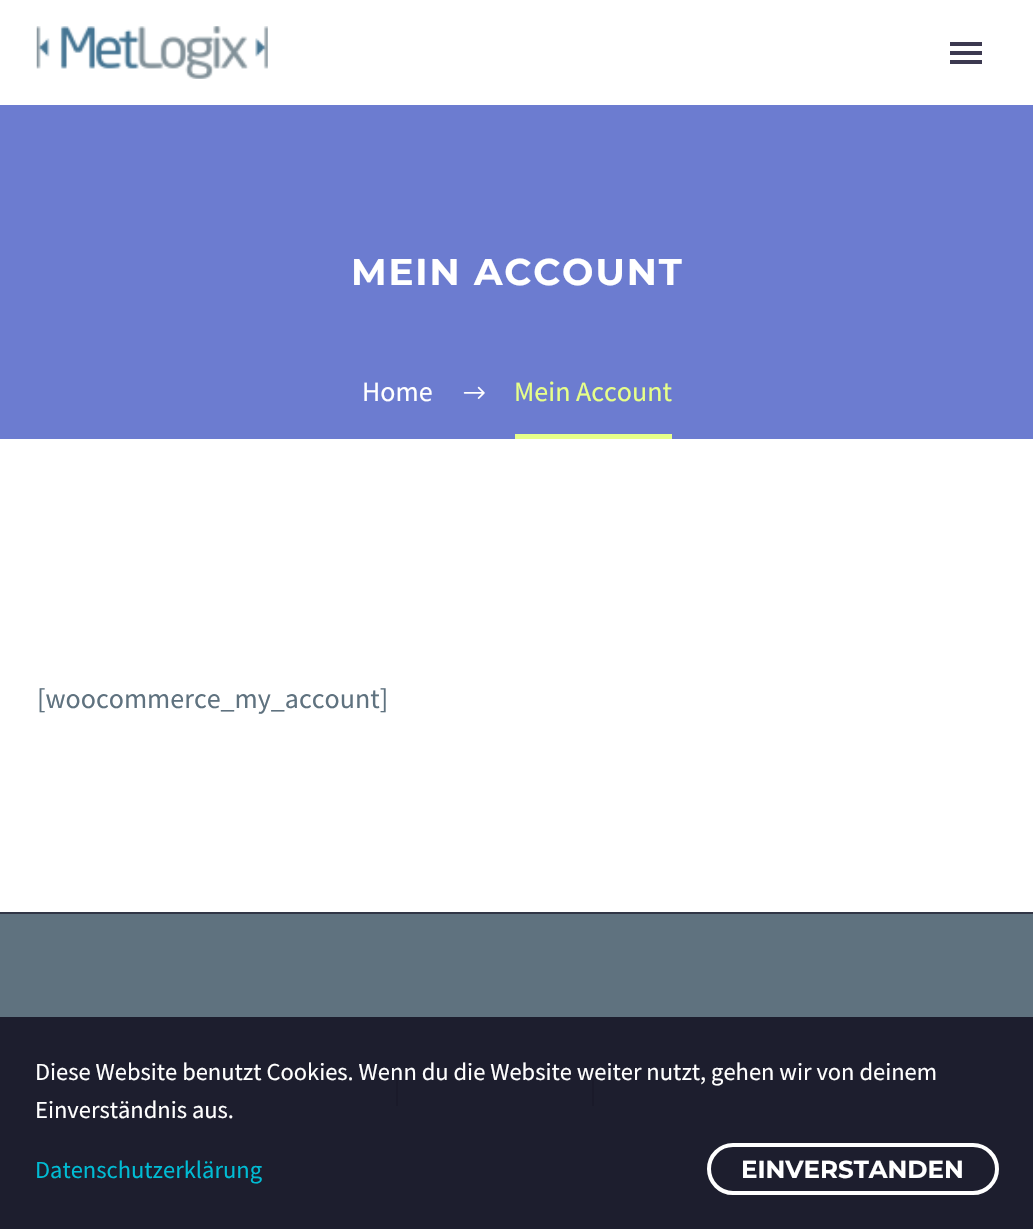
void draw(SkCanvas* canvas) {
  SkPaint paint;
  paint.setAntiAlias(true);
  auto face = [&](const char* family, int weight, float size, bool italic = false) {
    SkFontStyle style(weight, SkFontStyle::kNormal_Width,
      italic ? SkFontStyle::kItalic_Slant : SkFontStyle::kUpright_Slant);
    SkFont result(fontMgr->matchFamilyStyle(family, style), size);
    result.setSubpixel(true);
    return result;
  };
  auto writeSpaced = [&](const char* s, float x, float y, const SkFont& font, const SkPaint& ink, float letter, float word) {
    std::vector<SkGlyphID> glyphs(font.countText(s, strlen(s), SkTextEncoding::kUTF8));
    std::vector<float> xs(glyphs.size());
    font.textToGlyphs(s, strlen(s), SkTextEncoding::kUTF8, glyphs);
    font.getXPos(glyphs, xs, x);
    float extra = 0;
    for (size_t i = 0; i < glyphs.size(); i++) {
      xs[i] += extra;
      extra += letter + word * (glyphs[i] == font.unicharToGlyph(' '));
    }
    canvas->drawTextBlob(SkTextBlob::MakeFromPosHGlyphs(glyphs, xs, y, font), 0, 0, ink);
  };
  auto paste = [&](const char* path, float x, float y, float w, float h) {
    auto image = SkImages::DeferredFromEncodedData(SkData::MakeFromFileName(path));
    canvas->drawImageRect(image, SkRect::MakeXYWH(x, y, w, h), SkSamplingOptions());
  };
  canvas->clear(0xffffffff);
  paste("img/1.png", 36, 26, 232, 53);
  {
    const struct { float x, y, w, h; SkColor color; } items[] = {
      {950, 42, 32, 4, 0xff3c3950},
      {950, 51, 32, 4, 0xff3c3950},
      {950, 60, 32, 4, 0xff3c3950},
      {0, 105, 1033, 334, 0xff6c7cd0},
    };
    for (auto [x, y, w, h, color] : items) {
      paint.setColor(color);
      canvas->drawRect(SkRect::MakeXYWH(x, y, w, h), paint);
    }
  }
  paste("img/2.png", 463, 386, 22, 13);
  {
    const struct { float x, y, w, h; SkColor color; } items[] = {
      {515, 434, 157, 5, 0xffe7ff89},
      {0, 914, 1033, 103, 0xff5f727f},
      {0, 1017, 1033, 212, 0xff1d1e2e},
      {0, 912, 1033, 2, 0xff313646},
      {396, 1080, 2, 26, 0xff1a1a2a},
      {592, 1080, 2, 26, 0xff1a1a2a},
    };
    for (auto [x, y, w, h, color] : items) {
      paint.setColor(color);
      canvas->drawRect(SkRect::MakeXYWH(x, y, w, h), paint);
    }
  }
  paint.setStroke(true);
  paint.setStrokeWidth(4);
  paint.setColor(0xffffffff);
  canvas->drawRoundRect(SkRect::MakeXYWH(709, 1145, 288, 48), 24, 24, paint);
  auto f0 = face("Montserrat", 700, 37.25f);
  paint.setStroke(false);
  writeSpaced("MEIN ACCOUNT", 351, 285, f0, paint, 1.9f, 0);
  auto f1 = face("Source Sans Pro", 400, 28);
  canvas->drawString("Home", 362, 401, f1, paint);
  paint.setColor(0xffe7ff89);
  canvas->drawString("Mein Account", 514, 401, f1, paint);
  paint.setColor(0xff5f727f);
  canvas->drawString("[woocommerce_my_account]", 37, 708, f1, paint);
  auto f2 = face("Source Sans Pro", 400, 24.5f);
  paint.setColor(0xffffffff);
  canvas->drawString("Diese Website benutzt Cookies. Wenn du die Website weiter nutzt, gehen wir von deinem", 35, 1080, f2, paint);
  canvas->drawString("Einverständnis aus.", 35, 1118, f2, paint);
  paint.setColor(0xff00bcd4);
  canvas->drawString("Datenschutzerklärung", 35, 1178, f2, paint);
  auto f3 = face("Montserrat", 700, 24.5f);
  paint.setColor(0xffffffff);
  canvas->drawString("EINVERSTANDEN", 741, 1178, f3, paint);
}
